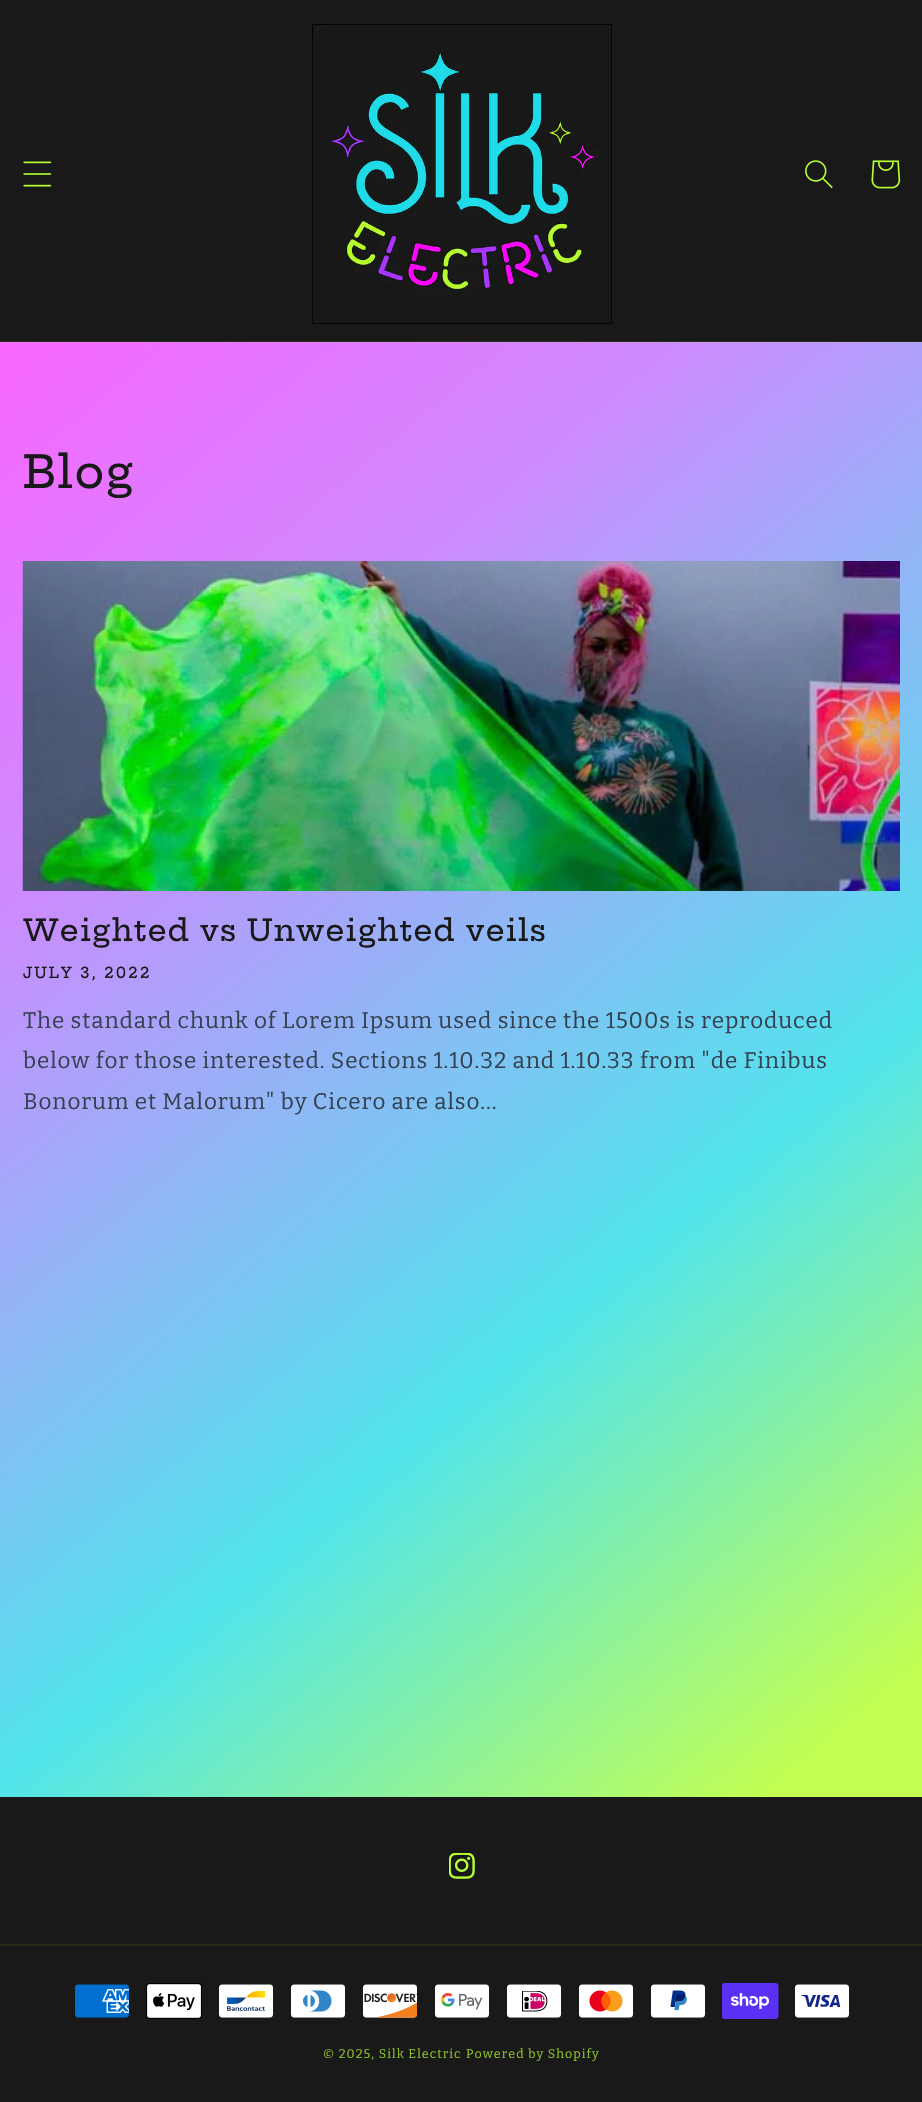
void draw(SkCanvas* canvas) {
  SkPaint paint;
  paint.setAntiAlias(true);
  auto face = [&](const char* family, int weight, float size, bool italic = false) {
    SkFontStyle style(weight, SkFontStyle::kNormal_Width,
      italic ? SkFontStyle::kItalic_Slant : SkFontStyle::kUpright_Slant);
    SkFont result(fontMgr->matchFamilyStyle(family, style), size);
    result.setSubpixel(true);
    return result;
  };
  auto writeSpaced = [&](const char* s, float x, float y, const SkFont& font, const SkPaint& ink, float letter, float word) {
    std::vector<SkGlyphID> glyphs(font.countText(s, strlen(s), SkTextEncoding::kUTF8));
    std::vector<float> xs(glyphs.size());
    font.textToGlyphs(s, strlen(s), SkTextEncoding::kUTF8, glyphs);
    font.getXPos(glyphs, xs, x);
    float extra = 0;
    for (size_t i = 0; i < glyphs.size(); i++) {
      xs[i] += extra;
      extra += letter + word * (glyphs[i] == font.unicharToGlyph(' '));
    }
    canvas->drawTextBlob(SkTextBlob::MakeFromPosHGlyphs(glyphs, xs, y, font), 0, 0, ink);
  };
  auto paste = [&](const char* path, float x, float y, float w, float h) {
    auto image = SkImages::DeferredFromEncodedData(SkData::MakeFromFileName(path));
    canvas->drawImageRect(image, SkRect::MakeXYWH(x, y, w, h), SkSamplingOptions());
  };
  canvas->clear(0xffffffff);
  {
    const SkColor colors[] = {0xffc3ff51, 0xff51e4ed, 0xffcc8bff, 0xffff61ff};
    const float stops[] = {0.15f, 0.38f, 0.68f, 0.91f};
    const SkPoint ends[] = {{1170, 1896}, {-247, 207}};
    paint.setShader(SkGradientShader::MakeLinear(ends, colors, stops, 4, SkTileMode::kClamp));
    paint.setAlpha(255);
  }
  canvas->drawRect(SkRect::MakeXYWH(0, 343, 922, 1454), paint);
  {
    const SkColor colors[] = {0xffc2ff4e, 0xff59e6de, 0xffca94ee, 0xfff96eee};
    const float stops[] = {0.15f, 0.38f, 0.68f, 0.91f};
    const SkPoint ends[] = {{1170, 1896}, {-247, 207}};
    paint.setShader(SkGradientShader::MakeLinear(ends, colors, stops, 4, SkTileMode::kClamp));
    paint.setAlpha(255);
  }
  canvas->drawRect(SkRect::MakeXYWH(0, 342, 922, 1), paint);
  paint.setShader(nullptr);
  paint.setColor(0xff191919);
  canvas->drawRect(SkRect::MakeXYWH(0, 0, 922, 341), paint);
  paint.setColor(0xff262b1b);
  canvas->drawRect(SkRect::MakeXYWH(0, 341, 922, 1), paint);
  paste("img/1.png", 23, 161, 29, 26);
  paste("img/2.png", 312, 24, 300, 300);
  paste("img/3.png", 805, 160, 28, 28);
  paste("img/4.png", 871, 160, 30, 29);
  paste("img/5.png", 22, 561, 878, 330);
  paint.setColor(0xff191919);
  canvas->drawRect(SkRect::MakeXYWH(0, 1797, 922, 305), paint);
  paste("img/6.png", 449, 1853, 26, 26);
  paint.setColor(0xff262b1b);
  canvas->drawRect(SkRect::MakeXYWH(0, 1944, 922, 2), paint);
  paste("img/7.png", 75, 1984, 54, 34);
  paste("img/8.png", 146, 1983, 56, 36);
  paste("img/9.png", 219, 1984, 54, 34);
  paste("img/10.png", 291, 1984, 54, 34);
  paste("img/11.png", 363, 1984, 55, 34);
  paste("img/12.png", 435, 1984, 54, 34);
  paste("img/13.png", 507, 1984, 54, 34);
  paste("img/14.png", 579, 1984, 54, 34);
  paste("img/15.png", 651, 1984, 54, 34);
  paste("img/16.png", 722, 1983, 57, 36);
  paste("img/17.png", 795, 1984, 54, 34);
  auto f0 = face("Hepta Slab", 500, 45);
  paint.setColor(0xff191919);
  writeSpaced("Blog", 23, 488, f0, paint, 0.9f, 0);
  auto f1 = face("Hepta Slab", 500, 30);
  writeSpaced("Weighted vs Unweighted veils", 23, 941, f1, paint, 0.9f, 0);
  auto f2 = face("Hepta Slab", 500, 15);
  writeSpaced("JULY 3, 2022", 23, 978, f2, paint, 2, 0);
  auto f3 = face("Bitter", 400, 22.5f);
  paint.setColor(0xff354150);
  {
    const struct { const char* s; float x, y; } items[] = {
      {"The standard chunk of Lorem Ipsum used since the 1500s is reproduced", 23, 1028},
      {"below for those interested. Sections 1.10.32 and 1.10.33 from \"de Finibus", 23, 1068},
      {"Bonorum et Malorum\" by Cicero are also...", 23, 1109},
    };
    for (auto [s, x, y] : items) {
      writeSpaced(s, x, y, f3, paint, 0.9f, 0);
    }
  }
  auto f4 = face("Bitter", 400, 12.5f);
  paint.setColor(0xff90c62a);
  writeSpaced("© 2025, Silk Electric", 323, 2058, f4, paint, 1.05f, 0);
  writeSpaced("Powered by Shopify", 466, 2058, f4, paint, 1.05f, 0);
}
